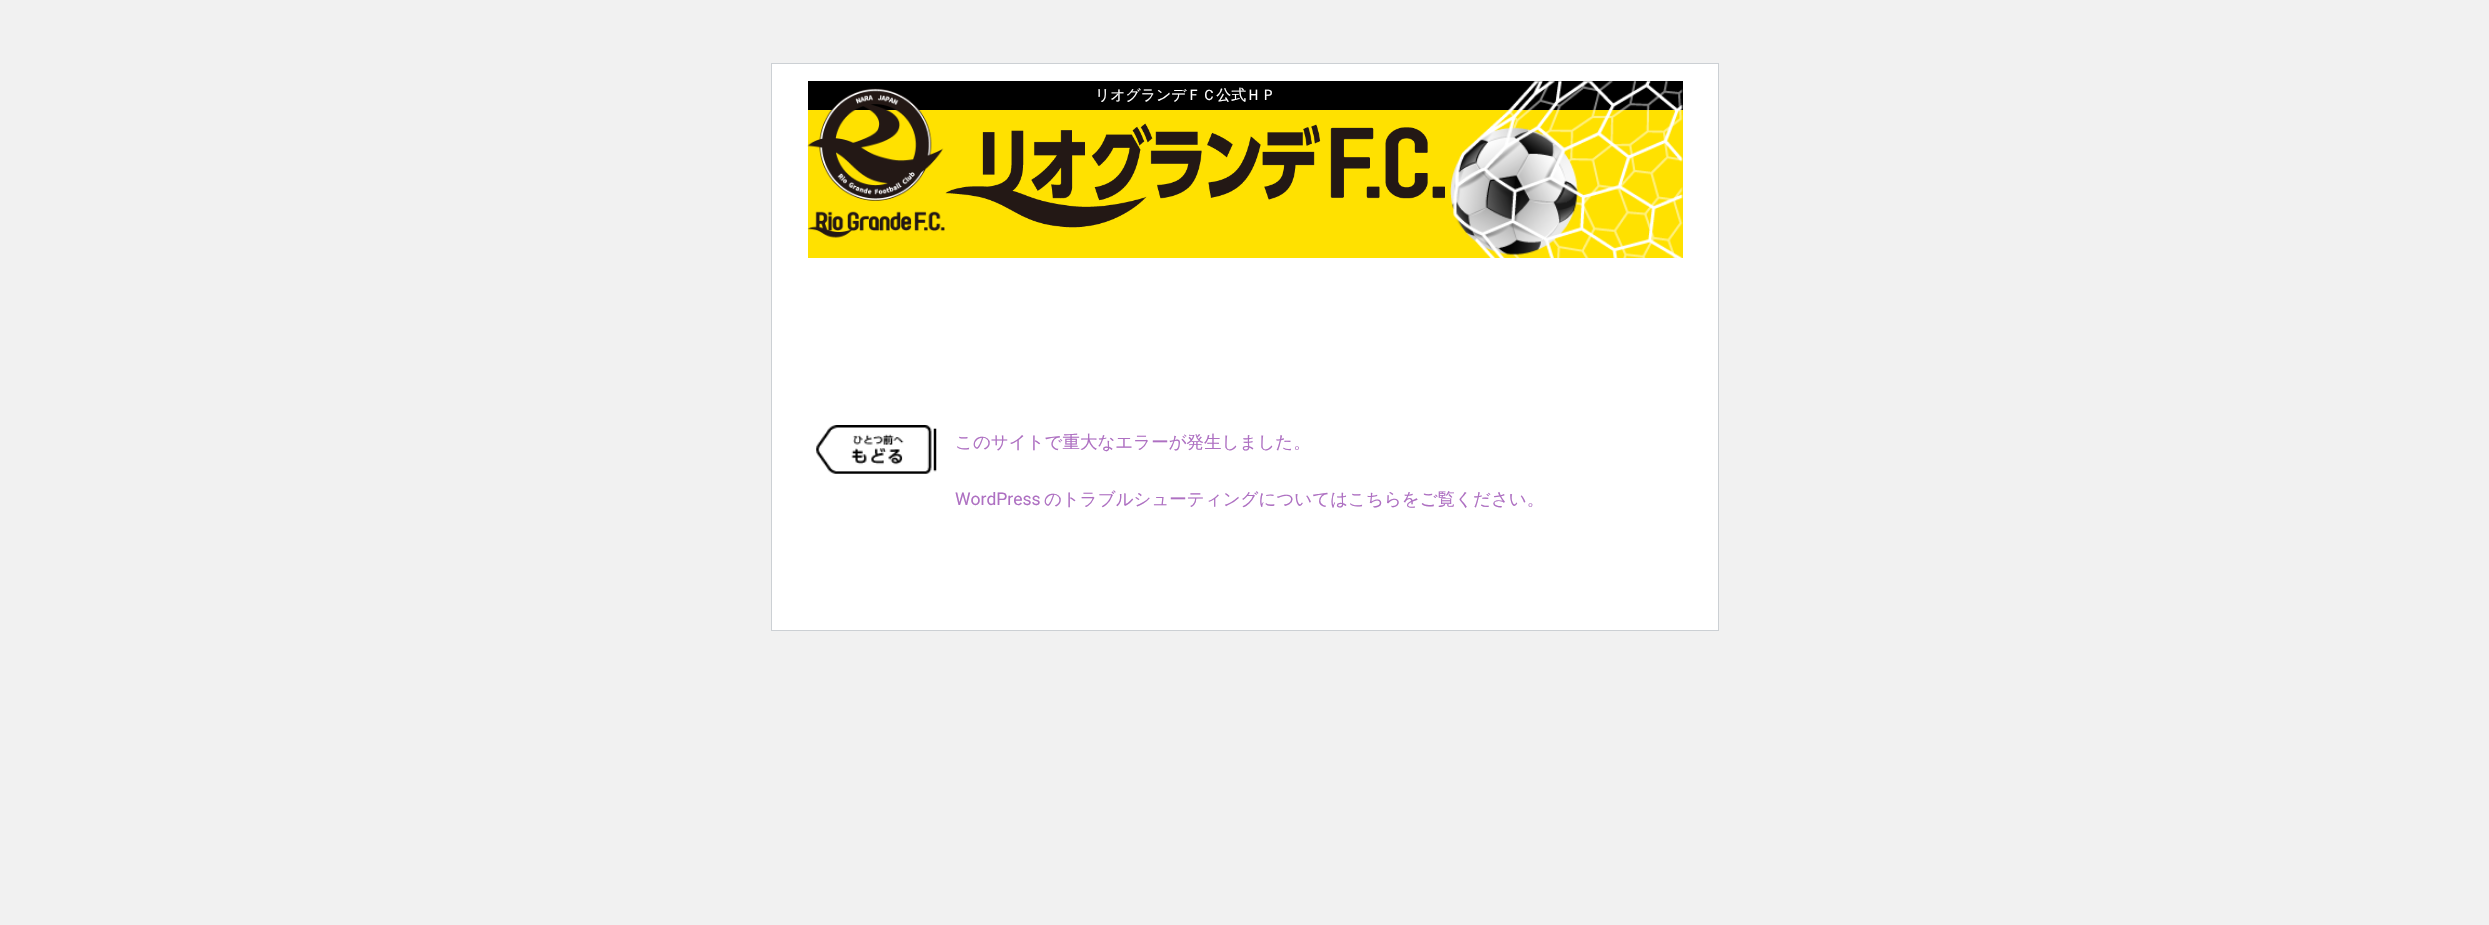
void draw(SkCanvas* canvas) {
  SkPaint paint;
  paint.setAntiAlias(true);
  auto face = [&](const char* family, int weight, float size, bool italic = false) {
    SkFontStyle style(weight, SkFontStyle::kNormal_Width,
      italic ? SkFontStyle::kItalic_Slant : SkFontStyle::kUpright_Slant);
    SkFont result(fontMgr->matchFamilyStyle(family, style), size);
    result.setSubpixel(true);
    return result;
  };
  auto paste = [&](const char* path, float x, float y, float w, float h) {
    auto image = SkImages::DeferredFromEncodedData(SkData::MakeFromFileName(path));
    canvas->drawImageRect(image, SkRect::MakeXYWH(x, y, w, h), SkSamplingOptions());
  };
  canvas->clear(0xfff1f1f1);
  paint.setColor(0xffffffff);
  canvas->drawRect(SkRect::MakeXYWH(771.5f, 63.5f, 947, 567), paint);
  paint.setStroke(true);
  paint.setStrokeWidth(1);
  paint.setColor(0xffccd0d4);
  canvas->drawRect(SkRect::MakeXYWH(771.5f, 63.5f, 947, 567), paint);
  paint.setStroke(false);
  paint.setColor(0xff000000);
  canvas->drawRect(SkRect::MakeXYWH(808, 81, 875, 29), paint);
  paint.setColor(0xffffe100);
  canvas->drawRect(SkRect::MakeXYWH(808, 110, 875, 148), paint);
  paste("img/1.png", 807, 88, 138, 150);
  paste("img/2.png", 1450, 81, 233, 177);
  paste("img/3.png", 945, 123, 500, 105);
  paste("img/4.png", 816, 425, 121, 49);
  auto f0 = face("WenQuanYi Zen Hei", 500, 14.9f);
  paint.setColor(0xffffffff);
  canvas->drawString("リオグランデＦＣ公式ＨＰ", 1095, 100, f0, paint);
  auto f1 = face("WenQuanYi Zen Hei", 500, 17.5f);
  paint.setColor(0xffae70c2);
  canvas->drawString("このサイトで重大なエラーが発生しました。", 955, 448, f1, paint);
  auto f2 = face("Roboto", 400, 17.5f);
  canvas->drawString("WordPress", 955, 505, f2, paint);
  canvas->drawString("のトラブルシューティングについてはこちらをご覧ください。", 1044, 505, f1, paint);
}
